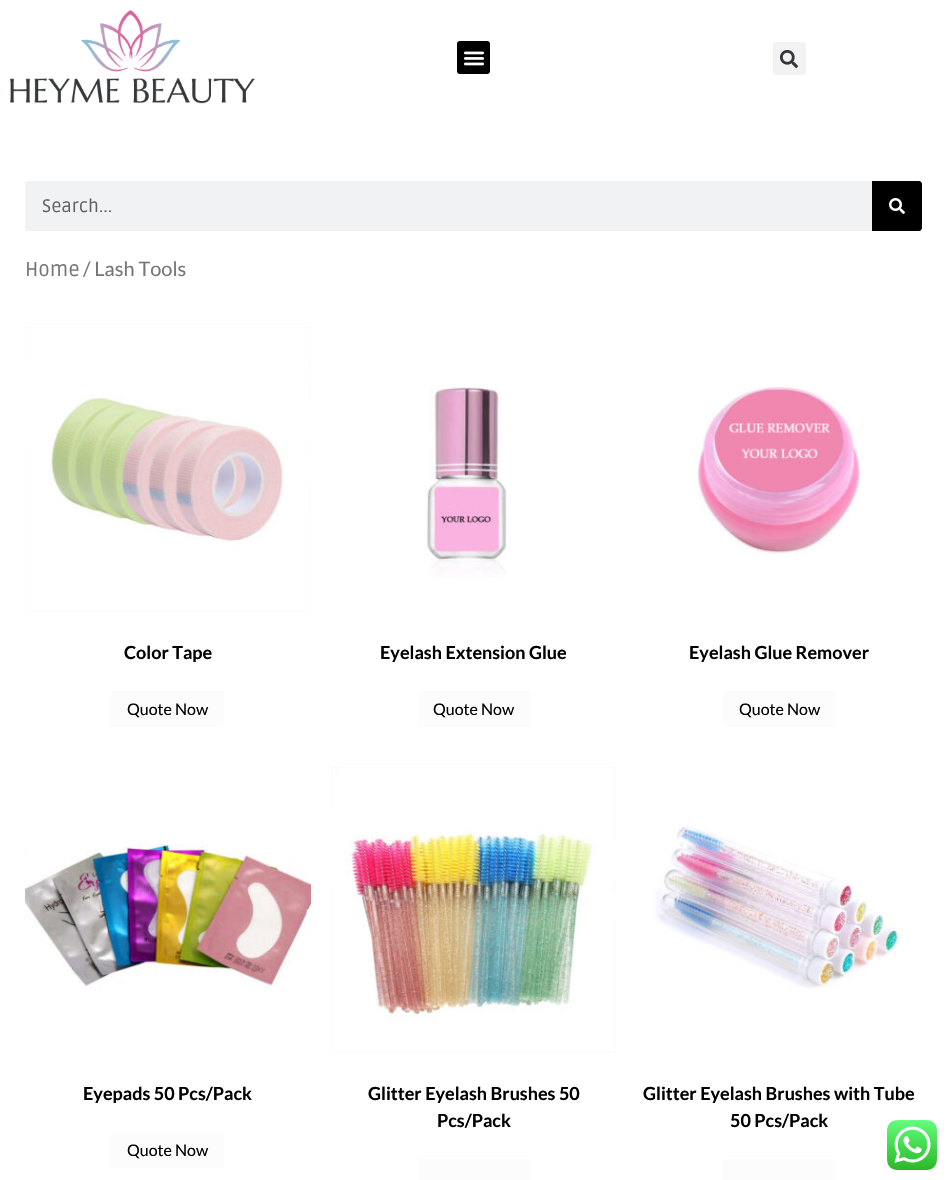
void draw(SkCanvas* canvas) {
  SkPaint paint;
  paint.setAntiAlias(true);
  auto face = [&](const char* family, int weight, float size, bool italic = false) {
    SkFontStyle style(weight, SkFontStyle::kNormal_Width,
      italic ? SkFontStyle::kItalic_Slant : SkFontStyle::kUpright_Slant);
    SkFont result(fontMgr->matchFamilyStyle(family, style), size);
    result.setSubpixel(true);
    return result;
  };
  auto paste = [&](const char* path, float x, float y, float w, float h) {
    auto image = SkImages::DeferredFromEncodedData(SkData::MakeFromFileName(path));
    canvas->drawImageRect(image, SkRect::MakeXYWH(x, y, w, h), SkSamplingOptions());
  };
  auto shape = [&](const char* data, bool evenOdd = false) {
    SkPath result = *SkParsePath::FromSVGString(data);
    if (evenOdd) result.setFillType(SkPathFillType::kEvenOdd);
    return result;
  };
  canvas->clear(0xffffffff);
  paste("img/1.png", 10, 10, 245, 94);
  paint.setColor(0xff000000);
  canvas->drawRoundRect(SkRect::MakeXYWH(457, 41, 33, 33), 3, 3, paint);
  paste("img/2.png", 463, 51, 22, 15);
  paint.setColor(0xfff2f2f2);
  canvas->drawRoundRect(SkRect::MakeXYWH(773, 42, 33, 33), 3, 3, paint);
  paste("img/3.png", 780, 50, 18, 18);
  paint.setColor(0xfff1f2f3);
  canvas->drawRoundRect(SkRect::MakeXYWH(25, 181, 897, 50), 3, 3, paint);
  paint.setColor(0xff000000);
  canvas->drawPath(shape("M872 181H919C920.5 181 922 182.5 922 184V228C922 229.5 920.5 231 919 231H872Z"), paint);
  paste("img/4.png", 889, 198, 16, 16);
  paste("img/5.png", 25, 327, 286, 285);
  paint.setColor(0xfffcfcfc);
  canvas->drawRoundRect(SkRect::MakeXYWH(111, 691, 113, 36), 3, 3, paint);
  paste("img/6.png", 425, 387, 82, 191);
  canvas->drawRoundRect(SkRect::MakeXYWH(417, 691, 113, 36), 3, 3, paint);
  paste("img/7.png", 697, 386, 167, 169);
  canvas->drawRoundRect(SkRect::MakeXYWH(723, 691, 113, 36), 3, 3, paint);
  paste("img/8.png", 25, 843, 286, 145);
  canvas->drawRoundRect(SkRect::MakeXYWH(111, 1132, 113, 36), 3, 3, paint);
  paste("img/9.png", 331, 767, 285, 286);
  canvas->drawRoundRect(SkRect::MakeXYWH(417, 1159, 113, 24), 3, 3, paint);
  paste("img/10.png", 655, 826, 248, 163);
  canvas->drawRoundRect(SkRect::MakeXYWH(723, 1159, 113, 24), 3, 3, paint);
  paste("img/11.png", 887, 1120, 50, 50);
  auto f0 = face("Ruda", 400, 18);
  paint.setColor(0xff606161);
  canvas->drawString("Search...", 42, 212, f0, paint);
  auto f1 = face("Ruda", 400, 20);
  paint.setColor(0xff767676);
  canvas->drawString("Home", 25, 276, f1, paint);
  auto f2 = face("Lato", 400, 20);
  canvas->drawString("/ Lash Tools", 83, 276, f2, paint);
  auto f3 = face("Lato", 700, 18);
  paint.setColor(0xff000000);
  canvas->drawString("Color Tape", 124, 659, f3, paint);
  auto f4 = face("Lato", 400, 16);
  canvas->drawString("Quote Now", 127, 715, f4, paint);
  canvas->drawString("Eyelash Extension Glue", 380, 659, f3, paint);
  canvas->drawString("Quote Now", 433, 715, f4, paint);
  canvas->drawString("Eyelash Glue Remover", 689, 659, f3, paint);
  canvas->drawString("Quote Now", 739, 715, f4, paint);
  canvas->drawString("Eyepads 50 Pcs/Pack", 83, 1100, f3, paint);
  canvas->drawString("Quote Now", 127, 1156, f4, paint);
  {
    const struct { const char* s; float x, y; } items[] = {
      {"Glitter Eyelash Brushes 50", 368, 1100},
      {"Pcs/Pack", 437, 1127},
      {"Glitter Eyelash Brushes with Tube", 643, 1100},
      {"50 Pcs/Pack", 730, 1127},
    };
    for (auto [s, x, y] : items) {
      canvas->drawString(s, x, y, f3, paint);
    }
  }
}
